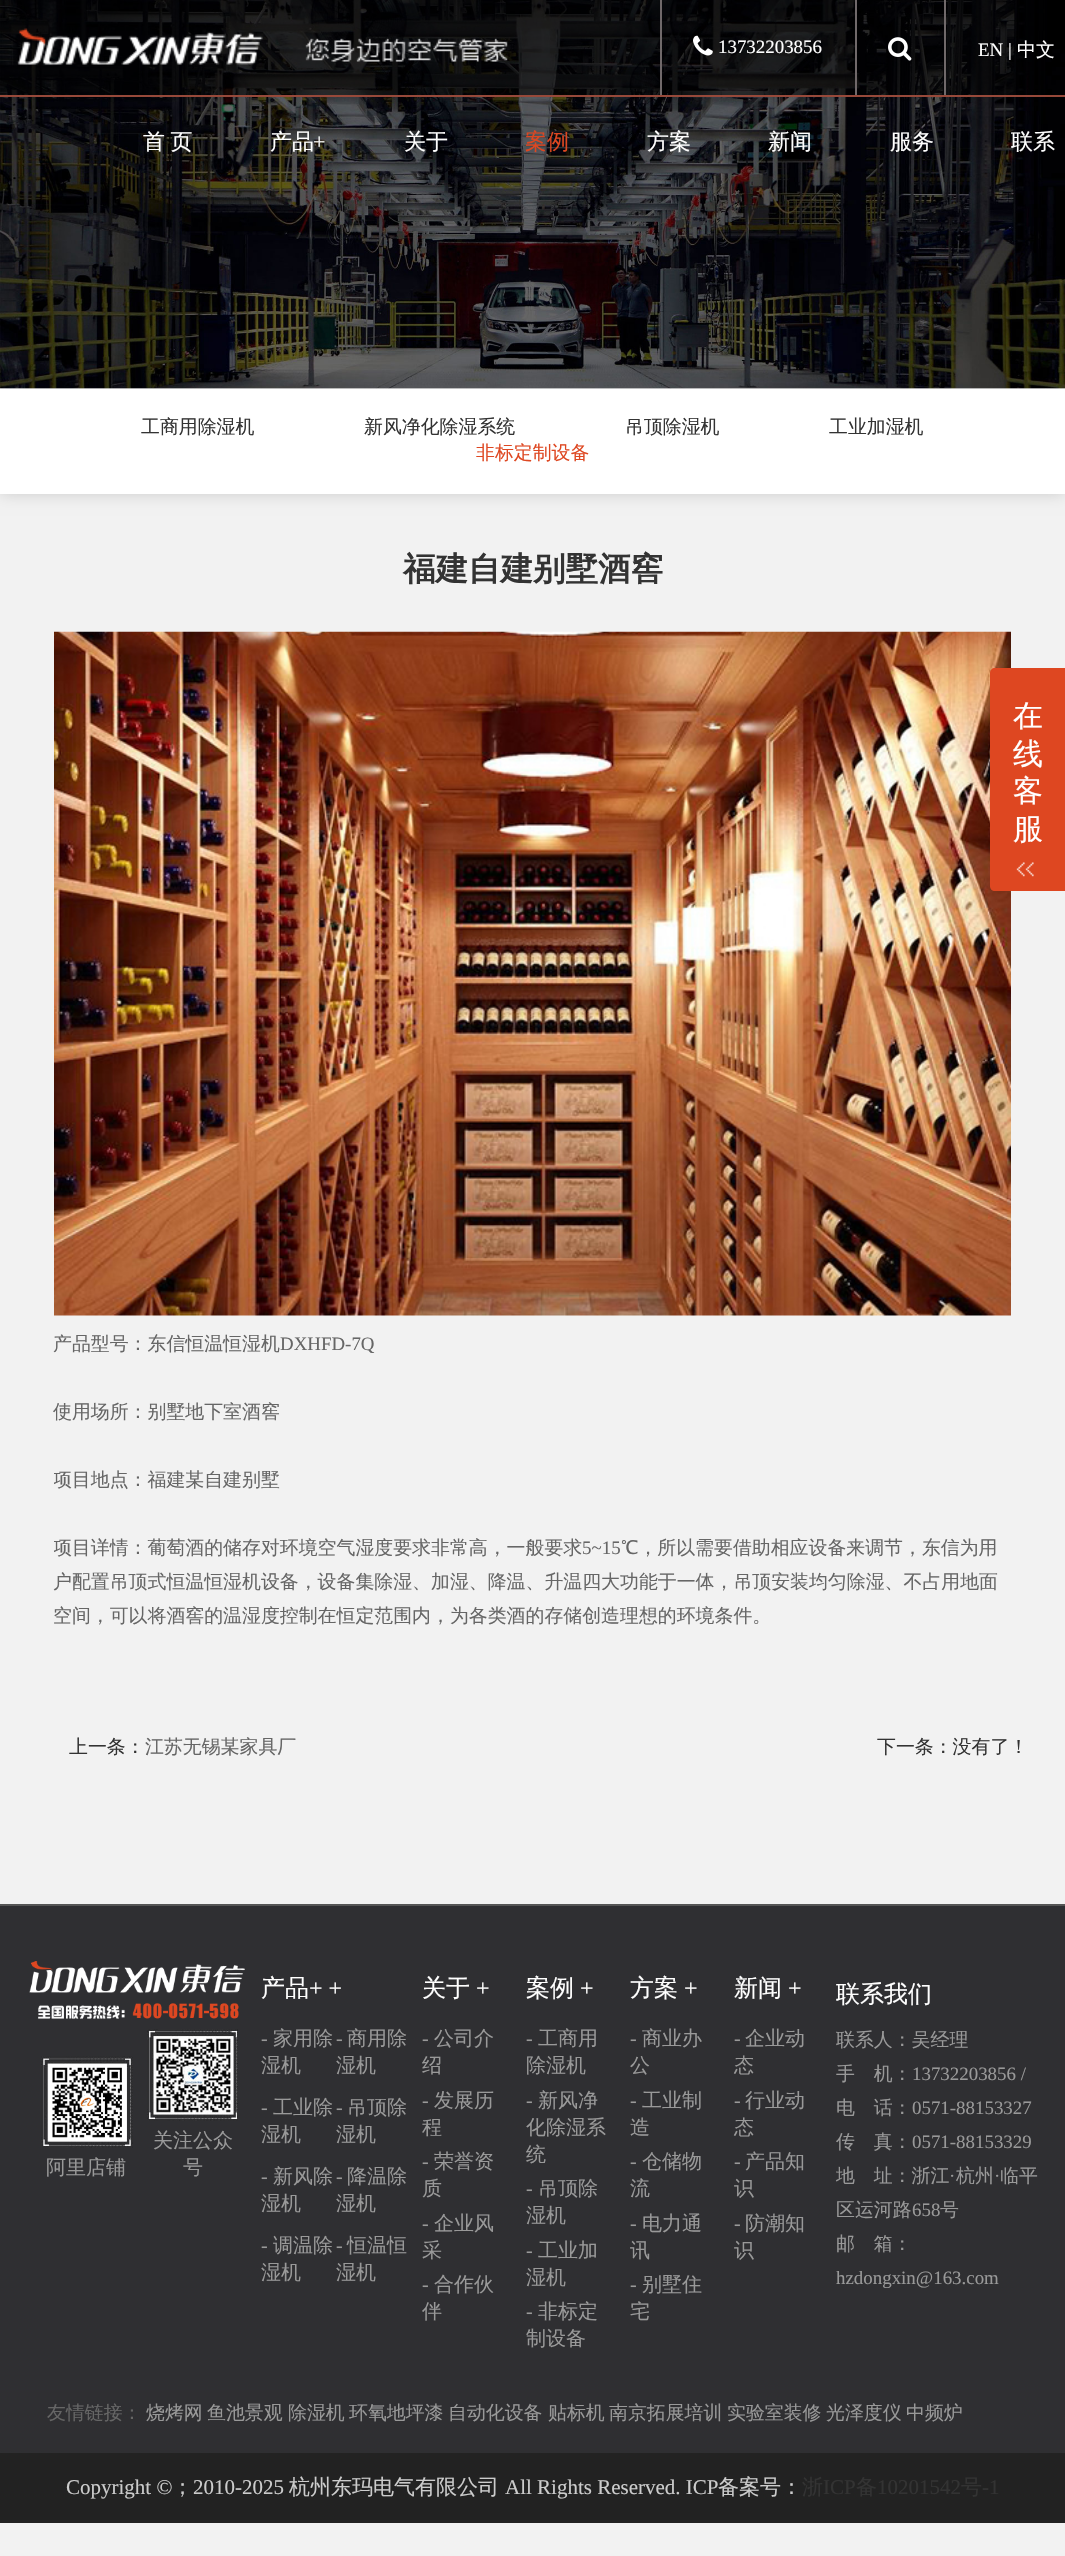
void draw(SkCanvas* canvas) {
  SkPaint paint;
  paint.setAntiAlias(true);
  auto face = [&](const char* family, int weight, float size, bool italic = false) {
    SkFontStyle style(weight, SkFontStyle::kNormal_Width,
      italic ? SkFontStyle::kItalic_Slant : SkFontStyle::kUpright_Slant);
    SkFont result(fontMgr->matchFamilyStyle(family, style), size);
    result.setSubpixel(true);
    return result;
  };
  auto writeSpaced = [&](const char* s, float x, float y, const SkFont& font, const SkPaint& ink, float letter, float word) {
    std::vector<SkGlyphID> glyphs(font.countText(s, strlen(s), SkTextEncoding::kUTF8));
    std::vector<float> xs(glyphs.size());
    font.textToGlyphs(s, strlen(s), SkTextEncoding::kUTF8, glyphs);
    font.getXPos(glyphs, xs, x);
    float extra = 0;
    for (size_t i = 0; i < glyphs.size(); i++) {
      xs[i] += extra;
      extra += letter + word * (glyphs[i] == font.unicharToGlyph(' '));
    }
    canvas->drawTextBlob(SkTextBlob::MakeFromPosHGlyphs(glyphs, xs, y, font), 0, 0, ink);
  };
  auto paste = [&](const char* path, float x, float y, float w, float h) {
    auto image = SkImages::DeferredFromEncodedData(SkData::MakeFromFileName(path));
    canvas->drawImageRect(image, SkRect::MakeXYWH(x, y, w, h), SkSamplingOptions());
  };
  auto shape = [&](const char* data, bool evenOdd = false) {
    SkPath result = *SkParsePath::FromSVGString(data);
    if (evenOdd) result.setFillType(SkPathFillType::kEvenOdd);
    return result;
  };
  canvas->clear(0xfff2f2f2);
  paint.setColor(0xffcccccc);
  paint.setMaskFilter(SkMaskFilter::MakeBlur(kNormal_SkBlurStyle, 7.5f));
  canvas->drawRect(SkRect::MakeXYWH(0, 389, 1065, 105), paint);
  paint.setMaskFilter(nullptr);
  paste("img/1.png", 0, 0, 1065, 389);
  paint.setColor(0x99000000);
  canvas->drawRect(SkRect::MakeXYWH(0, 0, 1046, 95), paint);
  paint.setColor(0xff97493a);
  canvas->drawRect(SkRect::MakeXYWH(0, 95, 1065, 2), paint);
  paste("img/2.png", 17, 28, 491, 37);
  paint.setColor(0xff70696a);
  canvas->drawRect(SkRect::MakeXYWH(660, 0, 2, 95), paint);
  paste("img/3.png", 693, 35, 20, 21);
  canvas->drawRect(SkRect::MakeXYWH(855, 0, 2, 95), paint);
  paste("img/4.png", 888, 37, 24, 24);
  canvas->drawRect(SkRect::MakeXYWH(944, 0, 2, 95), paint);
  paint.setColor(0xffffffff);
  canvas->drawRect(SkRect::MakeXYWH(0, 389, 1065, 105), paint);
  paste("img/5.png", 54, 631, 957, 685);
  paint.setColor(0xffde4721);
  canvas->drawPath(shape("M995 668H1065V891H995C992 891 990 889 990 886V673C990 670 992 668 995 668Z"), paint);
  paste("img/6.png", 1016, 862, 18, 15);
  paint.setColor(0xff2f2f32);
  canvas->drawRect(SkRect::MakeXYWH(0, 1906, 1065, 547), paint);
  paint.setColor(0xff555555);
  canvas->drawRect(SkRect::MakeXYWH(0, 1904, 1065, 2), paint);
  paste("img/7.png", 29, 1961, 216, 58);
  paste("img/8.png", 41, 2056, 92, 92);
  paste("img/9.png", 147, 2029, 91, 92);
  paint.setColor(0xff222222);
  canvas->drawRect(SkRect::MakeXYWH(0, 2453, 1065, 70), paint);
  auto f0 = face("Liberation Serif", 400, 18.9f);
  paint.setColor(0xffffffff);
  canvas->drawString("13732203856", 718, 53, f0, paint);
  canvas->drawString("EN |", 978, 56, f0, paint);
  auto f1 = face("WenQuanYi Zen Hei", 500, 18.9f);
  canvas->drawString("中文", 1017, 56, f1, paint);
  auto f2 = face("WenQuanYi Zen Hei", 500, 22);
  writeSpaced("首 页", 143, 149, f2, paint, 0, -1);
  canvas->drawString("产品", 270, 149, f2, paint);
  auto f3 = face("Liberation Serif", 400, 22);
  canvas->drawString("+", 313, 149, f3, paint);
  canvas->drawString("关于", 404, 149, f2, paint);
  paint.setColor(0xffde4721);
  canvas->drawString("案例", 525, 149, f2, paint);
  paint.setColor(0xffffffff);
  {
    const struct { const char* s; float x, y; } items[] = {
      {"方案", 647, 149},
      {"新闻", 768, 149},
      {"服务", 890, 149},
      {"联系", 1011, 149},
    };
    for (auto [s, x, y] : items) {
      canvas->drawString(s, x, y, f2, paint);
    }
  }
  paint.setColor(0xff333333);
  {
    const struct { const char* s; float x, y; } items[] = {
      {"工商用除湿机", 141, 433},
      {"新风净化除湿系统", 364, 433},
      {"吊顶除湿机", 625, 433},
      {"工业加湿机", 829, 433},
    };
    for (auto [s, x, y] : items) {
      canvas->drawString(s, x, y, f1, paint);
    }
  }
  paint.setColor(0xffde4721);
  canvas->drawString("非标定制设备", 476, 459, f1, paint);
  auto f4 = face("WenQuanYi Zen Hei", 700, 32.5f);
  paint.setColor(0xff333333);
  canvas->drawString("福建自建别墅酒窖", 403, 580, f4, paint);
  paint.setColor(0xff666666);
  canvas->drawString("产品型号：东信恒温恒湿机", 53, 1350, f1, paint);
  canvas->drawString("DXHFD-7Q", 280, 1350, f0, paint);
  canvas->drawString("使用场所：别墅地下室酒窖", 53, 1418, f1, paint);
  canvas->save();
  canvas->clipRect(SkRect::MakeXYWH(54, 632, 959, 1035));
  canvas->drawString("项目地点：福建某自建别墅", 53, 1486, f1, paint);
  canvas->drawString("项目详情：葡萄酒的储存对环境空气湿度要求非常高，一般要求", 53, 1554, f1, paint);
  canvas->restore();
  canvas->drawString("5~15", 582, 1554, f0, paint);
  {
    const struct { const char* s; float x, y; } items[] = {
      {"℃，所以需要借助相应设备来调节，东信为用", 621, 1554},
      {"户配置吊顶式恒温恒湿机设备，设备集除湿、加湿、降温、升温四大功能于一体，吊顶安装均匀除湿、不占用地面", 53, 1588},
      {"空间，可以将酒窖的温湿度控制在恒定范围内，为各类酒的存储创造理想的环境条件。", 53, 1622},
    };
    for (auto [s, x, y] : items) {
      canvas->drawString(s, x, y, f1, paint);
    }
  }
  paint.setColor(0xff333333);
  canvas->drawString("上一条：", 69, 1753, f1, paint);
  paint.setColor(0xff666666);
  canvas->drawString("江苏无锡某家具厂", 145, 1753, f1, paint);
  paint.setColor(0xff333333);
  canvas->drawString("下一条：没有了！", 877, 1753, f1, paint);
  auto f5 = face("WenQuanYi Zen Hei", 500, 30);
  paint.setColor(0xffffffff);
  {
    const struct { const char* s; float x, y; } items[] = {
      {"在", 1013, 726},
      {"线", 1013, 764},
      {"客", 1013, 801},
      {"服", 1013, 839},
    };
    for (auto [s, x, y] : items) {
      canvas->drawString(s, x, y, f5, paint);
    }
  }
  auto f6 = face("WenQuanYi Zen Hei", 500, 20);
  paint.setColor(0xff999999);
  {
    const struct { const char* s; float x, y; } items[] = {
      {"阿里店铺", 46, 2174},
      {"关注公众", 153, 2147},
      {"号", 183, 2174},
    };
    for (auto [s, x, y] : items) {
      canvas->drawString(s, x, y, f6, paint);
    }
  }
  auto f7 = face("WenQuanYi Zen Hei", 500, 24);
  paint.setColor(0xffffffff);
  canvas->drawString("产品", 261, 1996, f7, paint);
  auto f8 = face("Liberation Serif", 400, 24);
  canvas->drawString("+ +", 309, 1996, f8, paint);
  auto f9 = face("Liberation Serif", 400, 20);
  paint.setColor(0xff999999);
  canvas->drawString("-", 261, 2045, f9, paint);
  canvas->drawString("家用除", 273, 2045, f6, paint);
  canvas->drawString("湿机", 261, 2072, f6, paint);
  canvas->drawString("-", 336, 2045, f9, paint);
  canvas->drawString("商用除", 347, 2045, f6, paint);
  canvas->drawString("湿机", 336, 2072, f6, paint);
  canvas->drawString("-", 261, 2114, f9, paint);
  canvas->drawString("工业除", 273, 2114, f6, paint);
  canvas->drawString("湿机", 261, 2141, f6, paint);
  canvas->drawString("-", 336, 2114, f9, paint);
  canvas->drawString("吊顶除", 347, 2114, f6, paint);
  canvas->drawString("湿机", 336, 2141, f6, paint);
  canvas->drawString("-", 261, 2183, f9, paint);
  canvas->drawString("新风除", 273, 2183, f6, paint);
  canvas->drawString("湿机", 261, 2210, f6, paint);
  canvas->drawString("-", 336, 2183, f9, paint);
  canvas->drawString("降温除", 347, 2183, f6, paint);
  canvas->drawString("湿机", 336, 2210, f6, paint);
  canvas->drawString("-", 261, 2252, f9, paint);
  canvas->drawString("调温除", 273, 2252, f6, paint);
  canvas->drawString("湿机", 261, 2279, f6, paint);
  canvas->drawString("-", 336, 2252, f9, paint);
  canvas->drawString("恒温恒", 347, 2252, f6, paint);
  canvas->drawString("湿机", 336, 2279, f6, paint);
  paint.setColor(0xffffffff);
  canvas->drawString("关于", 422, 1996, f7, paint);
  canvas->drawString("+", 476, 1996, f8, paint);
  paint.setColor(0xff999999);
  canvas->drawString("-", 422, 2045, f9, paint);
  canvas->drawString("公司介", 434, 2045, f6, paint);
  canvas->drawString("绍", 422, 2072, f6, paint);
  canvas->drawString("-", 422, 2107, f9, paint);
  canvas->drawString("发展历", 434, 2107, f6, paint);
  canvas->drawString("程", 422, 2134, f6, paint);
  canvas->drawString("-", 422, 2168, f9, paint);
  canvas->drawString("荣誉资", 434, 2168, f6, paint);
  canvas->drawString("质", 422, 2195, f6, paint);
  canvas->drawString("-", 422, 2230, f9, paint);
  canvas->drawString("企业风", 434, 2230, f6, paint);
  canvas->drawString("采", 422, 2257, f6, paint);
  canvas->drawString("-", 422, 2291, f9, paint);
  canvas->drawString("合作伙", 434, 2291, f6, paint);
  canvas->drawString("伴", 422, 2318, f6, paint);
  paint.setColor(0xffffffff);
  canvas->drawString("案例", 526, 1996, f7, paint);
  canvas->drawString("+", 580, 1996, f8, paint);
  paint.setColor(0xff999999);
  canvas->drawString("-", 526, 2045, f9, paint);
  canvas->drawString("工商用", 538, 2045, f6, paint);
  canvas->drawString("除湿机", 526, 2072, f6, paint);
  canvas->drawString("-", 526, 2107, f9, paint);
  {
    const struct { const char* s; float x, y; } items[] = {
      {"新风净", 538, 2107},
      {"化除湿系", 526, 2134},
      {"统", 526, 2161},
    };
    for (auto [s, x, y] : items) {
      canvas->drawString(s, x, y, f6, paint);
    }
  }
  canvas->drawString("-", 526, 2195, f9, paint);
  canvas->drawString("吊顶除", 538, 2195, f6, paint);
  canvas->drawString("湿机", 526, 2222, f6, paint);
  canvas->drawString("-", 526, 2257, f9, paint);
  canvas->drawString("工业加", 538, 2257, f6, paint);
  canvas->drawString("湿机", 526, 2284, f6, paint);
  canvas->drawString("-", 526, 2318, f9, paint);
  canvas->drawString("非标定", 538, 2318, f6, paint);
  canvas->drawString("制设备", 526, 2345, f6, paint);
  paint.setColor(0xffffffff);
  canvas->drawString("方案", 630, 1996, f7, paint);
  canvas->drawString("+", 684, 1996, f8, paint);
  paint.setColor(0xff999999);
  canvas->drawString("-", 630, 2045, f9, paint);
  canvas->drawString("商业办", 642, 2045, f6, paint);
  canvas->drawString("公", 630, 2072, f6, paint);
  canvas->drawString("-", 630, 2107, f9, paint);
  canvas->drawString("工业制", 642, 2107, f6, paint);
  canvas->drawString("造", 630, 2134, f6, paint);
  canvas->drawString("-", 630, 2168, f9, paint);
  canvas->drawString("仓储物", 642, 2168, f6, paint);
  canvas->drawString("流", 630, 2195, f6, paint);
  canvas->drawString("-", 630, 2230, f9, paint);
  canvas->drawString("电力通", 642, 2230, f6, paint);
  canvas->drawString("讯", 630, 2257, f6, paint);
  canvas->drawString("-", 630, 2291, f9, paint);
  canvas->drawString("别墅住", 642, 2291, f6, paint);
  canvas->drawString("宅", 630, 2318, f6, paint);
  paint.setColor(0xffffffff);
  canvas->drawString("新闻", 734, 1996, f7, paint);
  canvas->drawString("+", 788, 1996, f8, paint);
  paint.setColor(0xff999999);
  canvas->drawString("-", 734, 2045, f9, paint);
  canvas->drawString("企业动", 745, 2045, f6, paint);
  canvas->drawString("态", 734, 2072, f6, paint);
  canvas->drawString("-", 734, 2107, f9, paint);
  canvas->drawString("行业动", 745, 2107, f6, paint);
  canvas->drawString("态", 734, 2134, f6, paint);
  canvas->drawString("-", 734, 2168, f9, paint);
  canvas->drawString("产品知", 745, 2168, f6, paint);
  canvas->drawString("识", 734, 2195, f6, paint);
  canvas->drawString("-", 734, 2230, f9, paint);
  canvas->drawString("防潮知", 745, 2230, f6, paint);
  canvas->drawString("识", 734, 2257, f6, paint);
  paint.setColor(0xffffffff);
  canvas->drawString("联系我们", 836, 2002, f7, paint);
  paint.setColor(0xff999999);
  canvas->drawString("联系人：吴经理", 836, 2046, f1, paint);
  canvas->drawString("手　机：", 836, 2080, f1, paint);
  canvas->drawString("13732203856 /", 912, 2080, f0, paint);
  canvas->drawString("电　话：", 836, 2114, f1, paint);
  canvas->drawString("0571-88153327", 912, 2114, f0, paint);
  canvas->drawString("传　真：", 836, 2148, f1, paint);
  canvas->drawString("0571-88153329", 912, 2148, f0, paint);
  canvas->drawString("地　址：浙江", 836, 2182, f1, paint);
  canvas->drawString("·", 949, 2182, f0, paint);
  canvas->drawString("杭州", 956, 2182, f1, paint);
  canvas->drawString("·", 994, 2182, f0, paint);
  canvas->drawString("临平", 1000, 2182, f1, paint);
  canvas->drawString("区运河路", 836, 2216, f1, paint);
  canvas->drawString("658", 912, 2216, f0, paint);
  canvas->drawString("号", 940, 2216, f1, paint);
  canvas->drawString("邮　箱：", 836, 2250, f1, paint);
  canvas->drawString("hzdongxin@163.com", 836, 2284, f0, paint);
  paint.setColor(0xff666666);
  canvas->drawString("友情链接：", 47, 2419, f1, paint);
  paint.setColor(0xff999999);
  {
    const struct { const char* s; float x, y; } items[] = {
      {"烧烤网", 146, 2419},
      {"鱼池景观", 207, 2419},
      {"除湿机", 288, 2419},
      {"环氧地坪漆", 349, 2419},
      {"自动化设备", 448, 2419},
      {"贴标机", 548, 2419},
      {"南京拓展培训", 609, 2419},
      {"实验室装修", 727, 2419},
      {"光泽度仪", 826, 2419},
      {"中频炉", 906, 2419},
    };
    for (auto [s, x, y] : items) {
      canvas->drawString(s, x, y, f1, paint);
    }
  }
  auto f10 = face("Liberation Serif", 400, 21);
  paint.setColor(0xffcccccc);
  canvas->drawString("Copyright ©", 66, 2494, f10, paint);
  auto f11 = face("WenQuanYi Zen Hei", 500, 21);
  canvas->drawString("；", 172, 2494, f11, paint);
  canvas->drawString("2010-2025", 193, 2494, f10, paint);
  canvas->drawString("杭州东玛电气有限公司", 289, 2494, f11, paint);
  canvas->drawString("All Rights Reserved. ICP", 505, 2494, f10, paint);
  canvas->drawString("备案号：", 718, 2494, f11, paint);
  paint.setColor(0xff333333);
  canvas->drawString("浙", 802, 2494, f11, paint);
  canvas->drawString("ICP", 823, 2494, f10, paint);
  canvas->drawString("备", 856, 2494, f11, paint);
  canvas->drawString("10201542", 877, 2494, f10, paint);
  canvas->drawString("号", 961, 2494, f11, paint);
  canvas->drawString("-1", 982, 2494, f10, paint);
}
